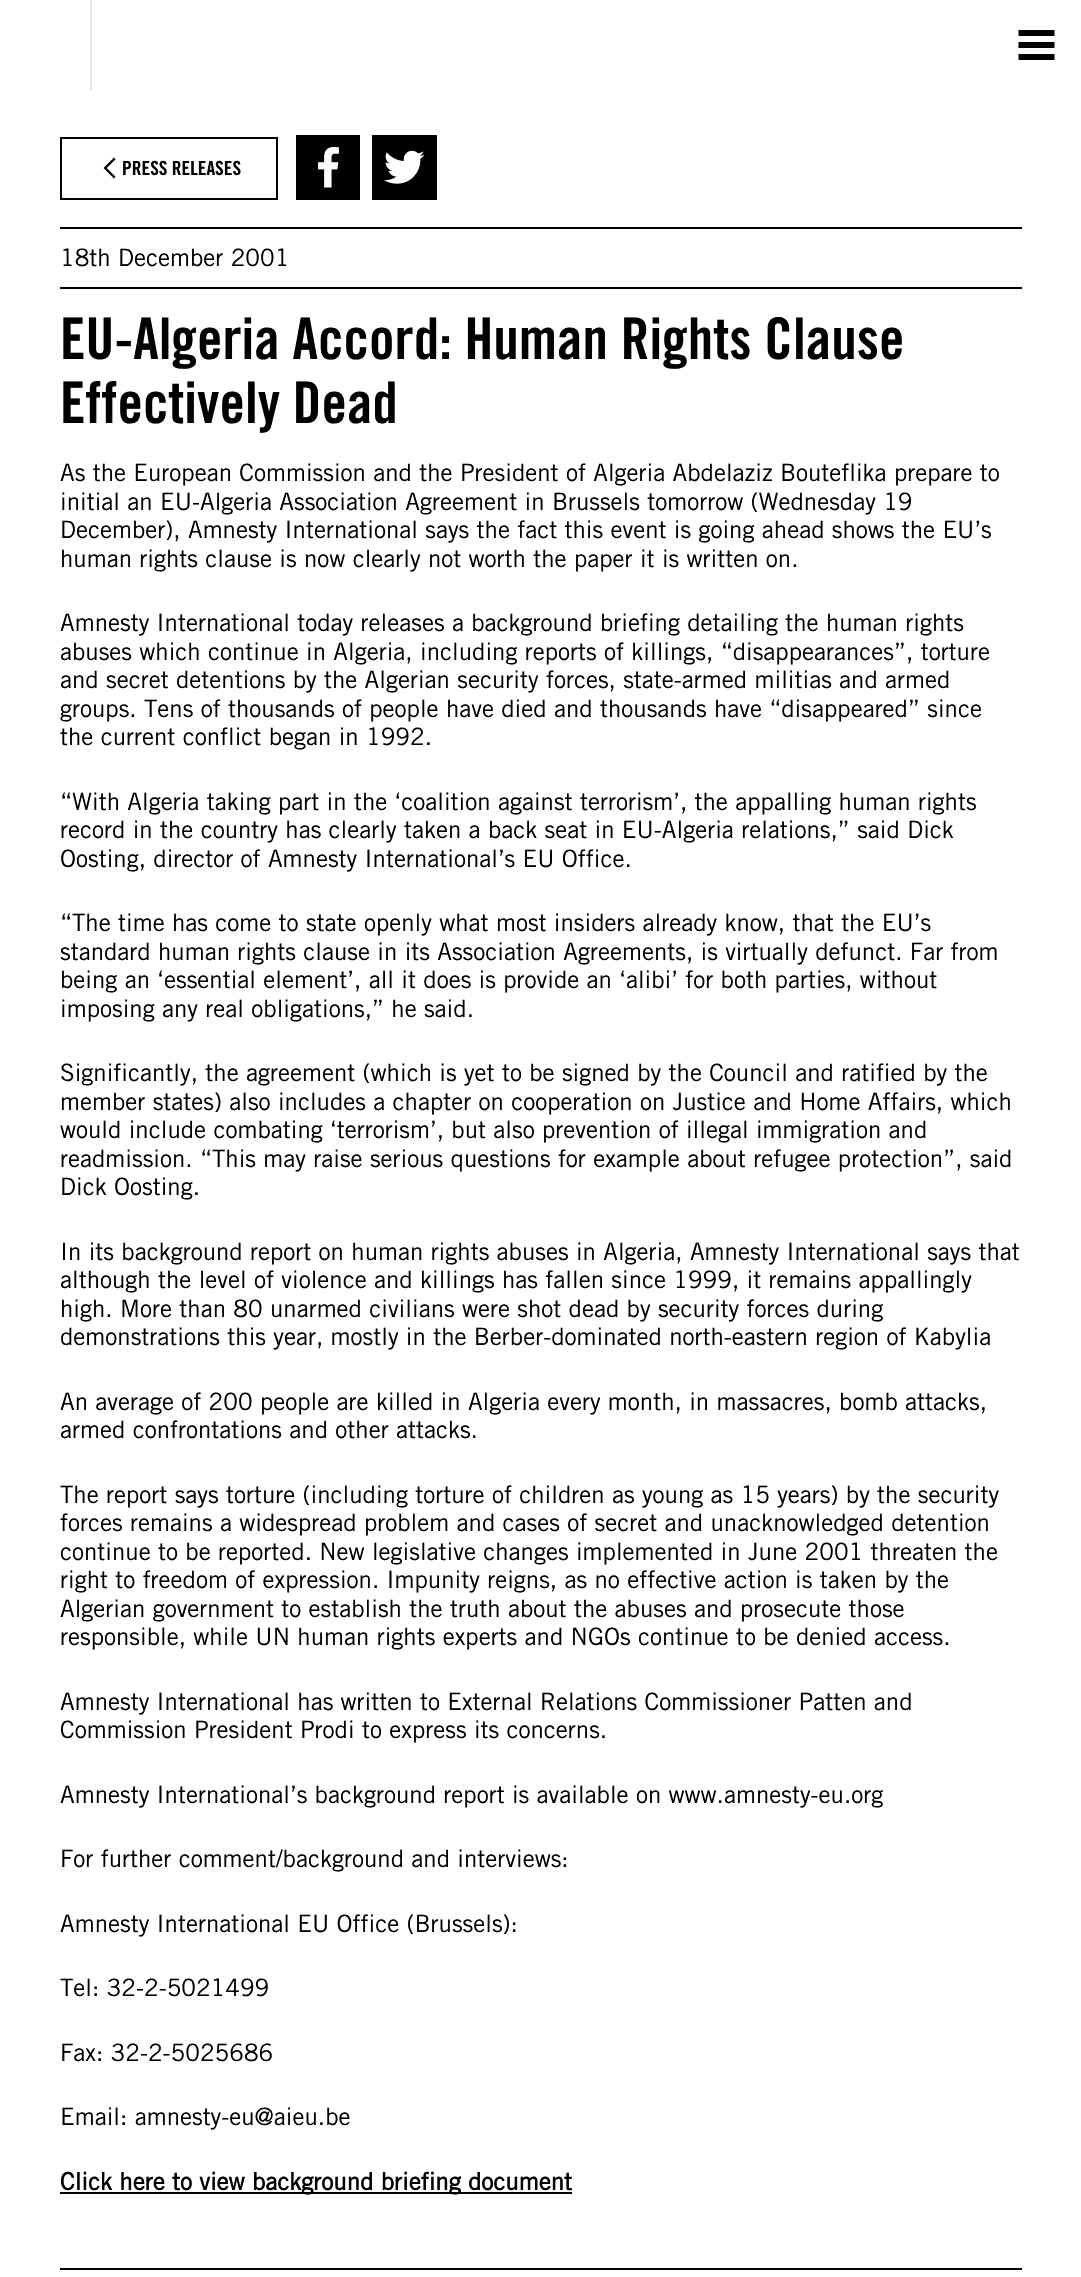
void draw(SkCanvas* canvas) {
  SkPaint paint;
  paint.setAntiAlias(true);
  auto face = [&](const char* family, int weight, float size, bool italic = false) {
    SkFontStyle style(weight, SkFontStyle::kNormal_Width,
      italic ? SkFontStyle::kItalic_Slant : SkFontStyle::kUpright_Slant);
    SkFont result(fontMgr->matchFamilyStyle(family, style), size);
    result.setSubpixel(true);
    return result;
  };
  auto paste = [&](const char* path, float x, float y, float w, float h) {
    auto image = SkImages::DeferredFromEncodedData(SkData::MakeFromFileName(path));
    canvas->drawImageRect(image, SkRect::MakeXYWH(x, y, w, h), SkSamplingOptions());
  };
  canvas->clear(0xffffffff);
  paint.setColor(0xffe4e4e4);
  canvas->drawRect(SkRect::MakeXYWH(90, 0, 2, 90), paint);
  paste("img/1.png", 1018, 30, 37, 30);
  paint.setStroke(true);
  paint.setStrokeWidth(2);
  paint.setColor(0xff000000);
  canvas->drawRect(SkRect::MakeXYWH(61, 138, 216, 61), paint);
  paste("img/2.png", 103, 157, 13, 22);
  paint.setStroke(false);
  canvas->drawRect(SkRect::MakeXYWH(296, 135, 64, 65), paint);
  paste("img/3.png", 318, 147, 21, 41);
  canvas->drawRect(SkRect::MakeXYWH(372, 135, 65, 65), paint);
  paste("img/4.png", 384, 150, 41, 34);
  {
    const struct { float x, y, w, h; SkColor color; } items[] = {
      {60, 227, 962, 2, 0xff000000},
      {60, 287, 962, 2, 0xff000000},
      {60, 2192, 512, 2, 0xff000000},
      {60, 2268, 962, 2, 0xff000000},
    };
    for (auto [x, y, w, h, color] : items) {
      paint.setColor(color);
      canvas->drawRect(SkRect::MakeXYWH(x, y, w, h), paint);
    }
  }
  auto f0 = face("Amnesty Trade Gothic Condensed", 700, 19.5f);
  canvas->drawString("PRESS RELEASES", 122, 175, f0, paint);
  auto f1 = face("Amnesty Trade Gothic", 400, 24);
  canvas->drawString("18th December 2001", 60, 266, f1, paint);
  auto f2 = face("Amnesty Trade Gothic Condensed", 700, 57.4f);
  canvas->drawString("EU-Algeria Accord: Human Rights Clause", 60, 359, f2, paint);
  canvas->drawString("Effectively Dead", 60, 423, f2, paint);
  {
    const struct { const char* s; float x, y; } items[] = {
      {"As the European Commission and the President of Algeria Abdelaziz Bouteflika prepare to", 60, 481},
      {"initial an EU-Algeria Association Agreement in Brussels tomorrow (Wednesday 19", 60, 510},
      {"December), Amnesty International says the fact this event is going ahead shows the EU’s", 60, 538},
      {"human rights clause is now clearly not worth the paper it is written on.", 60, 567},
      {"Amnesty International today releases a background briefing detailing the human rights", 60, 631},
      {"abuses which continue in Algeria, including reports of killings, “disappearances”, torture", 60, 660},
      {"and secret detentions by the Algerian security forces, state-armed militias and armed", 60, 688},
      {"groups. Tens of thousands of people have died and thousands have “disappeared” since", 60, 717},
      {"the current conflict began in 1992.", 60, 745},
      {"“With Algeria taking part in the ‘coalition against terrorism’, the appalling human rights", 60, 810},
      {"record in the country has clearly taken a back seat in EU-Algeria relations,” said Dick", 60, 838},
      {"Oosting, director of Amnesty International’s EU Office.", 60, 867},
      {"“The time has come to state openly what most insiders already know, that the EU’s", 60, 931},
      {"standard human rights clause in its Association Agreements, is virtually defunct. Far from", 60, 960},
      {"being an ‘essential element’, all it does is provide an ‘alibi’ for both parties, without", 60, 988},
      {"imposing any real obligations,” he said.", 60, 1017},
      {"Significantly, the agreement (which is yet to be signed by the Council and ratified by the", 60, 1081},
      {"member states) also includes a chapter on cooperation on Justice and Home Affairs, which", 60, 1110},
      {"would include combating ‘terrorism’, but also prevention of illegal immigration and", 60, 1138},
      {"readmission. “This may raise serious questions for example about refugee protection”, said", 60, 1167},
      {"Dick Oosting.", 60, 1195},
      {"In its background report on human rights abuses in Algeria, Amnesty International says that", 60, 1260},
      {"although the level of violence and killings has fallen since 1999, it remains appallingly", 60, 1288},
      {"high. More than 80 unarmed civilians were shot dead by security forces during", 60, 1317},
      {"demonstrations this year, mostly in the Berber-dominated north-eastern region of Kabylia", 60, 1345},
      {"An average of 200 people are killed in Algeria every month, in massacres, bomb attacks,", 60, 1410},
      {"armed confrontations and other attacks.", 60, 1438},
      {"The report says torture (including torture of children as young as 15 years) by the security", 60, 1503},
      {"forces remains a widespread problem and cases of secret and unacknowledged detention", 60, 1531},
      {"continue to be reported. New legislative changes implemented in June 2001 threaten the", 60, 1560},
      {"right to freedom of expression. Impunity reigns, as no effective action is taken by the", 60, 1588},
      {"Algerian government to establish the truth about the abuses and prosecute those", 60, 1617},
      {"responsible, while UN human rights experts and NGOs continue to be denied access.", 60, 1645},
      {"Amnesty International has written to External Relations Commissioner Patten and", 60, 1710},
      {"Commission President Prodi to express its concerns.", 60, 1738},
      {"Amnesty International’s background report is available on www.amnesty-eu.org", 60, 1803},
      {"For further comment/background and interviews:", 60, 1867},
      {"Amnesty International EU Office (Brussels):", 60, 1932},
      {"Tel: 32-2-5021499", 60, 1996},
      {"Fax: 32-2-5025686", 60, 2061},
      {"Email: amnesty-eu@aieu.be", 60, 2125},
    };
    for (auto [s, x, y] : items) {
      canvas->drawString(s, x, y, f1, paint);
    }
  }
  auto f3 = face("Amnesty Trade Gothic", 700, 24);
  canvas->drawString("Click here to view background briefing document", 60, 2190, f3, paint);
}
